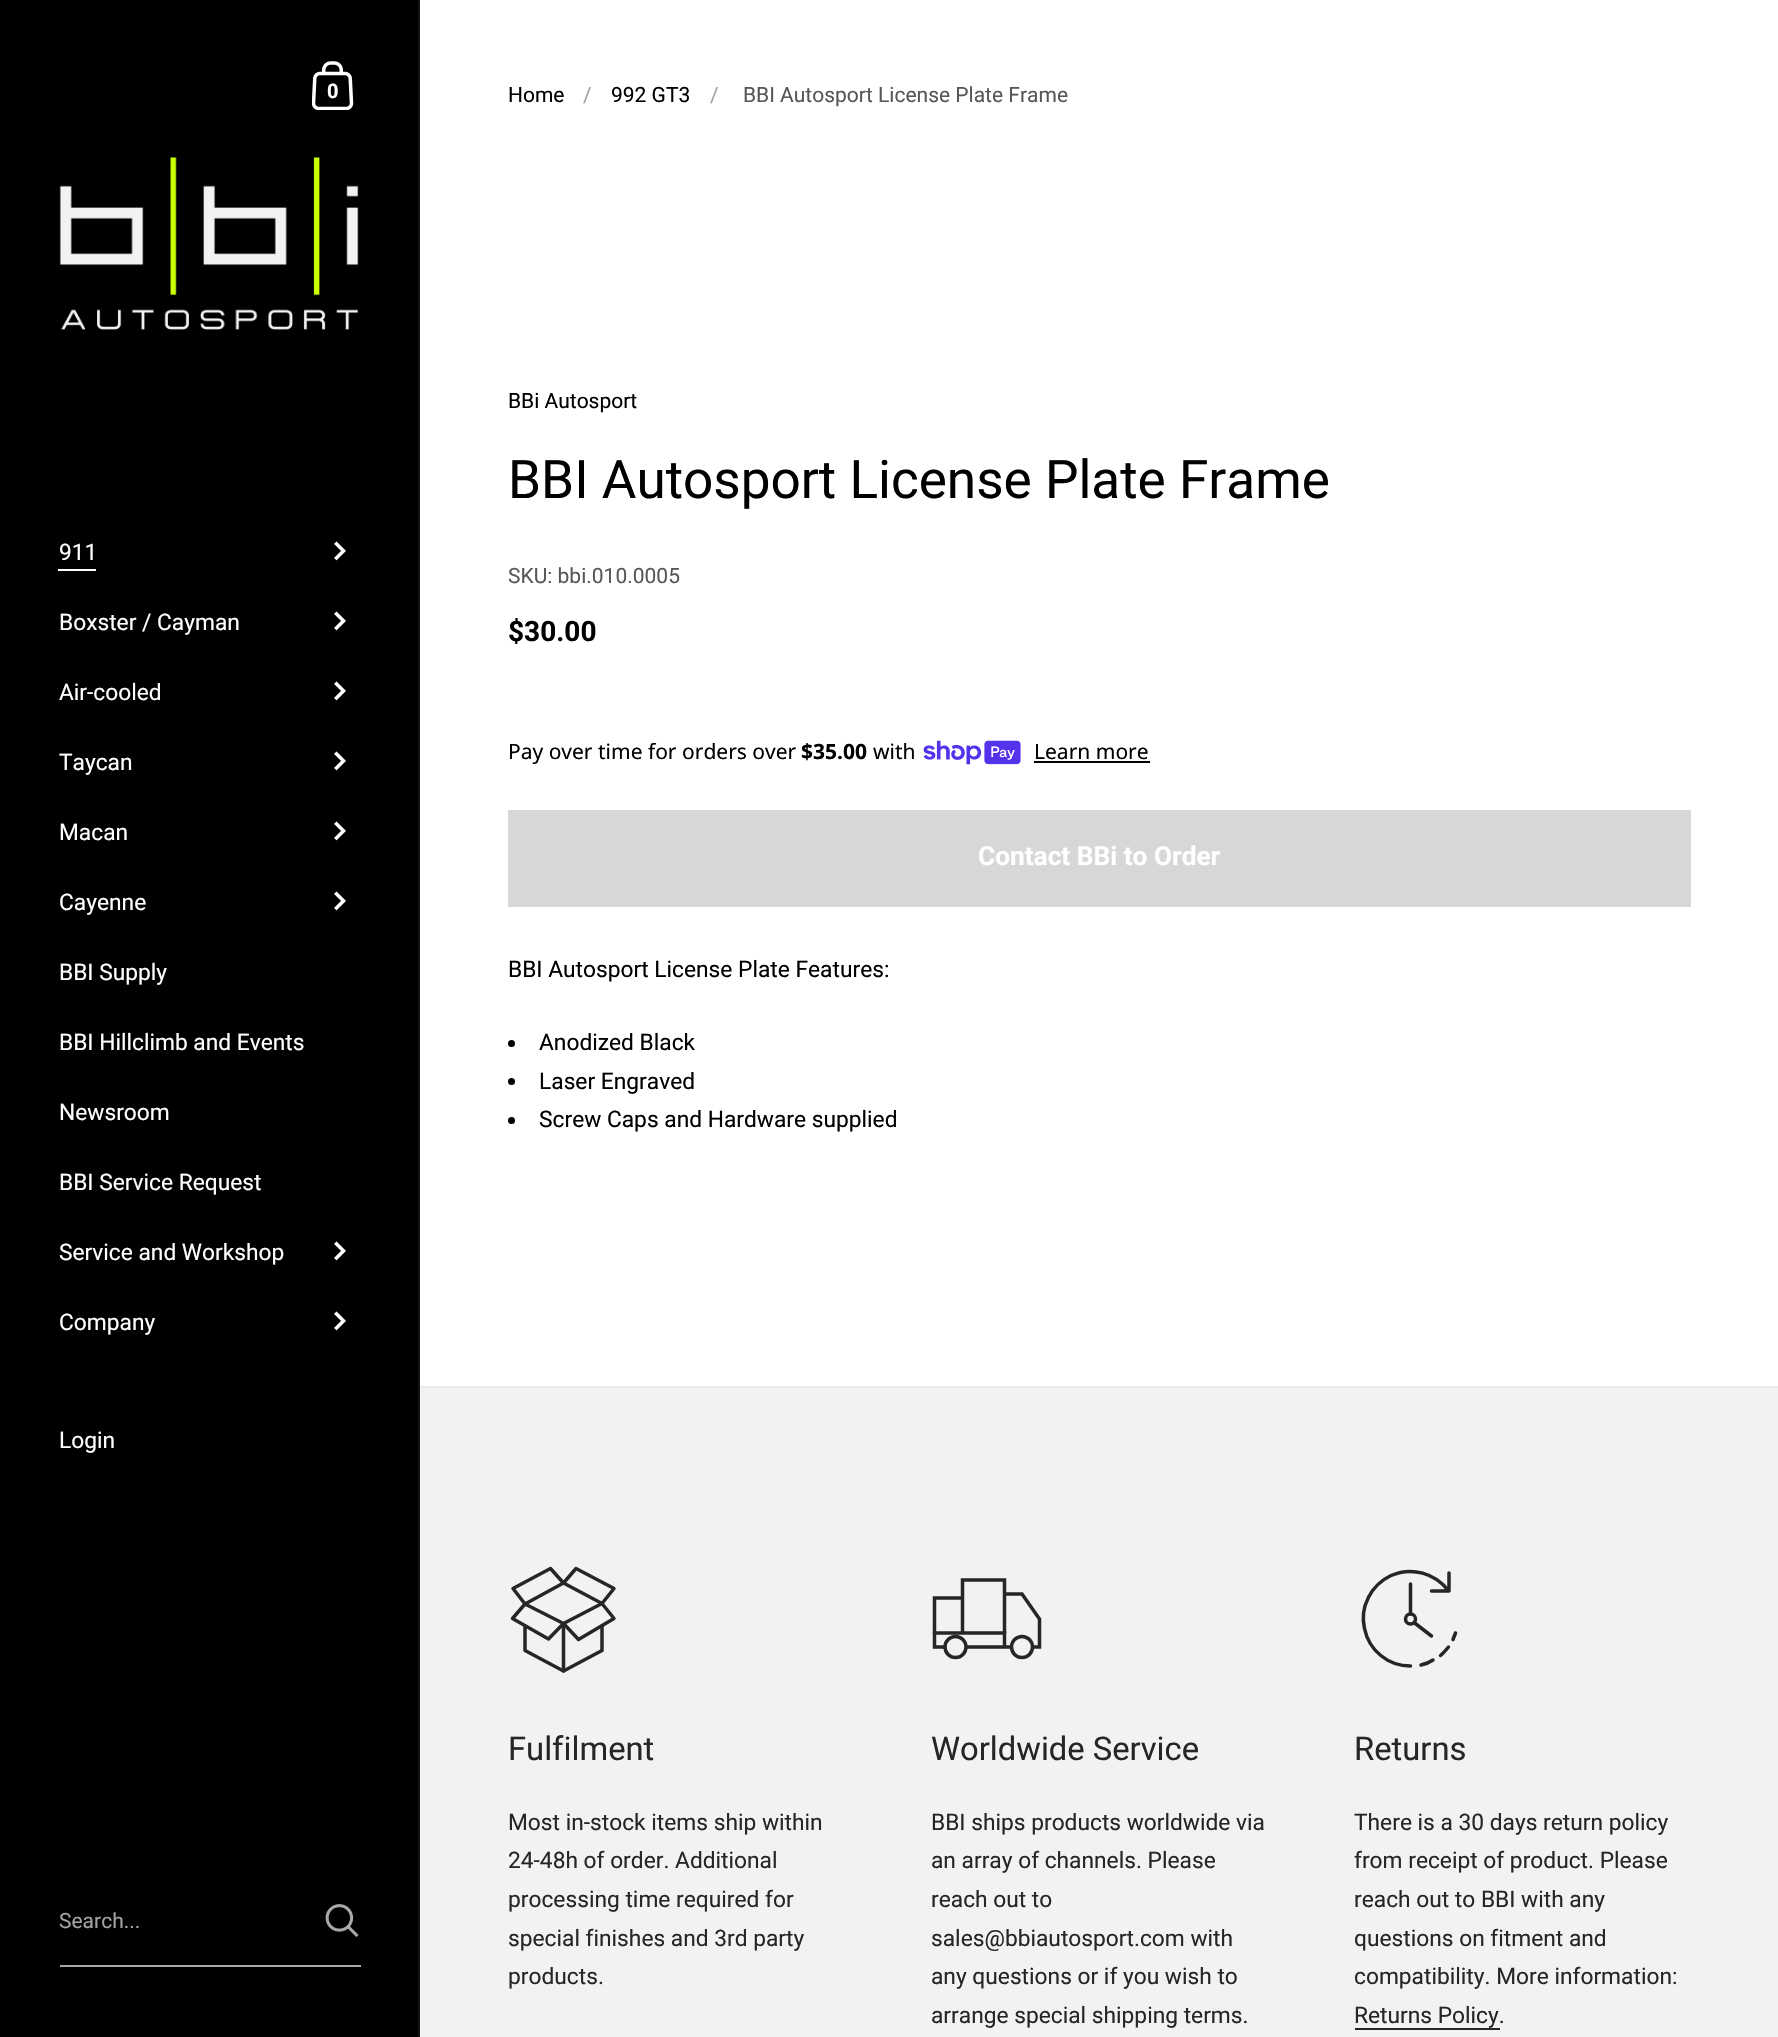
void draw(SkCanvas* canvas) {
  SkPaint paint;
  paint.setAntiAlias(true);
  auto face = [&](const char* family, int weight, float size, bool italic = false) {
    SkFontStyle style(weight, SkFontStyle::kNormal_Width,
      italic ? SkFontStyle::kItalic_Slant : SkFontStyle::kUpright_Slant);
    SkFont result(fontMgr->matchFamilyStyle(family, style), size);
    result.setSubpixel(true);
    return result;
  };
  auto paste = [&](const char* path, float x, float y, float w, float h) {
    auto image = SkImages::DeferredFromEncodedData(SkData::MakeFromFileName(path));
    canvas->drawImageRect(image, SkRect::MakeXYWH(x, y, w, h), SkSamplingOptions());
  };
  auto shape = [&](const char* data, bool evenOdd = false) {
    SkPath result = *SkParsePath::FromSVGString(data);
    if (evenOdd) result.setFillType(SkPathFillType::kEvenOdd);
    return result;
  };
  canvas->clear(0xffffffff);
  paint.setColor(0xff000000);
  canvas->drawRect(SkRect::MakeXYWH(0, 0, 418, 2037), paint);
  paint.setColor(0xff141414);
  canvas->drawRect(SkRect::MakeXYWH(418, 0, 2, 2037), paint);
  paste("img/1.png", 312, 61, 42, 49);
  paste("img/2.png", 59, 157, 300, 173);
  paint.setColor(0xffffffff);
  canvas->drawRect(SkRect::MakeXYWH(58, 569, 38, 2), paint);
  paste("img/3.png", 334, 541, 12, 20);
  paste("img/3.png", 334, 611, 12, 20);
  paste("img/3.png", 334, 681, 12, 20);
  paste("img/3.png", 334, 751, 12, 20);
  paste("img/3.png", 334, 821, 12, 20);
  paste("img/3.png", 334, 891, 12, 20);
  paste("img/3.png", 334, 1241, 12, 20);
  paste("img/3.png", 334, 1311, 12, 20);
  paint.setColor(0xffa8a8a8);
  canvas->drawRect(SkRect::MakeXYWH(60, 1965, 301, 2), paint);
  paste("img/4.png", 325, 1904, 34, 33);
  paint.setColor(0xffebebeb);
  canvas->drawRect(SkRect::MakeXYWH(420, 1386, 1358, 2), paint);
  paste("img/5.png", 923, 740, 98, 25);
  paint.setColor(0xff000000);
  canvas->drawRect(SkRect::MakeXYWH(1034, 761, 116, 2), paint);
  paint.setColor(0xffd7d7d7);
  canvas->drawRect(SkRect::MakeXYWH(508, 810, 1183, 97), paint);
  paint.setColor(0xff000000);
  canvas->drawCircle(511.5f, 1043.5f, 3.5f, paint);
  canvas->drawCircle(511.5f, 1081.5f, 3.5f, paint);
  canvas->drawCircle(511.5f, 1120.5f, 3.5f, paint);
  paint.setColor(0xfff2f2f2);
  canvas->drawRect(SkRect::MakeXYWH(420, 1388, 1358, 649), paint);
  paint.setStroke(true);
  paint.setStrokeWidth(3.5f);
  paint.setStrokeJoin(SkPaint::kRound_Join);
  paint.setColor(0xff262626);
  canvas->drawPath(shape("M602 1603.5L614 1588.5L576 1568.5L563.5 1583Z"), paint);
  canvas->drawPath(shape("M563.5 1583L550.5 1568.5L513 1588.5L525 1604Z"), paint);
  paint.setStrokeCap(SkPaint::kRound_Cap);
  canvas->drawPath(shape("M525 1626V1650.5L563.5 1671L602 1650.5V1626"), paint);
  canvas->drawPath(shape("M563.5 1671V1623.5"), paint);
  paint.setStrokeCap(SkPaint::kButt_Cap);
  canvas->drawPath(shape("M563.5 1623.5L548.5 1639L512.5 1618.5L525 1604ZM602 1603.5L614 1618.5L578.5 1639.5L563.5 1623.5Z"), paint);
  paint.setStrokeJoin(SkPaint::kMiter_Join);
  canvas->drawPath(shape("M934.5 1633V1598H962.5M962.5 1633V1580H1004.5V1594M1004.5 1633V1594H1022L1039.5 1619V1647H1032.5"), paint);
  canvas->drawCircle(955.5f, 1647, 10.5f, paint);
  canvas->drawCircle(1022, 1647, 10.5f, paint);
  canvas->drawPath(shape("M945 1647H934.5V1633H1004.5V1647H966M1004.5 1647H1011.5"), paint);
  paint.setStrokeCap(SkPaint::kRound_Cap);
  paint.setStrokeJoin(SkPaint::kRound_Join);
  canvas->drawPath(shape("M1449 1573V1591H1431.5M1410.5 1666C1388 1666 1369 1650.5 1364.5 1628.5C1359.5 1607 1371 1585 1391 1575.5C1411.5 1566.5 1435.5 1573 1448.5 1591M1433 1660C1429.5 1662.5 1425.5 1664 1421 1665M1448.5 1647C1446 1650 1443.5 1653 1440.5 1655.5M1455.5 1633L1453 1639.5"), paint);
  paint.setStrokeCap(SkPaint::kButt_Cap);
  paint.setStrokeJoin(SkPaint::kMiter_Join);
  canvas->drawCircle(1410.5f, 1619, 5, paint);
  paint.setStrokeCap(SkPaint::kRound_Cap);
  paint.setStrokeJoin(SkPaint::kRound_Join);
  canvas->drawPath(shape("M1414 1622.5L1431.5 1636M1410.5 1584V1613.5"), paint);
  paint.setStroke(false);
  canvas->drawRect(SkRect::MakeXYWH(1355, 2028, 145, 2), paint);
  auto f0 = face("Roboto", 700, 20);
  paint.setColor(0xffffffff);
  canvas->drawString("0", 327, 98, f0, paint);
  auto f1 = face("Roboto", 400, 22.75f);
  {
    const struct { const char* s; float x, y; } items[] = {
      {"911", 59, 560},
      {"Boxster / Cayman", 59, 630},
      {"Air-cooled", 59, 700},
      {"Taycan", 59, 770},
      {"Macan", 59, 840},
      {"Cayenne", 59, 910},
      {"BBI Supply", 59, 980},
      {"BBI Hillclimb and Events", 59, 1050},
      {"Newsroom", 59, 1120},
      {"BBI Service Request", 59, 1190},
      {"Service and Workshop", 59, 1260},
      {"Company", 59, 1330},
      {"Login", 59, 1448},
    };
    for (auto [s, x, y] : items) {
      canvas->drawString(s, x, y, f1, paint);
    }
  }
  auto f2 = face("Roboto", 400, 21);
  paint.setColor(0xffa3a3a3);
  canvas->drawString("Search...", 59, 1928, f2, paint);
  paint.setColor(0xff000000);
  canvas->drawString("Home", 508, 102, f2, paint);
  paint.setColor(0xffa3a3a3);
  canvas->drawString("/", 583, 102, f2, paint);
  paint.setColor(0xff000000);
  canvas->drawString("992 GT3", 611, 102, f2, paint);
  paint.setColor(0xffa3a3a3);
  canvas->drawString("/", 710, 102, f2, paint);
  paint.setColor(0xff575757);
  canvas->drawString("BBI Autosport License Plate Frame", 743, 102, f2, paint);
  paint.setColor(0xff000000);
  canvas->drawString("BBi Autosport", 508, 408, f2, paint);
  auto f3 = face("Roboto", 400, 53.1f);
  canvas->drawString("BBI Autosport License Plate Frame", 508, 498, f3, paint);
  paint.setColor(0xff575757);
  canvas->drawString("SKU: bbi.010.0005", 508, 583, f2, paint);
  auto f4 = face("Roboto", 700, 28);
  paint.setColor(0xff000000);
  canvas->drawString("$30.00", 508, 641, f4, paint);
  auto f5 = face("Noto Sans", 400, 21);
  canvas->drawString("Pay over time for orders over", 508, 759, f5, paint);
  auto f6 = face("Noto Sans", 700, 21);
  canvas->drawString("$35.00", 801, 759, f6, paint);
  canvas->drawString("with", 873, 759, f5, paint);
  canvas->drawString("Learn more", 1034, 759, f5, paint);
  auto f7 = face("Roboto", 700, 26.25f);
  paint.setColor(0xffffffff);
  canvas->drawString("Contact BBi to Order", 978, 865, f7, paint);
  paint.setColor(0xff000000);
  {
    const struct { const char* s; float x, y; } items[] = {
      {"BBI Autosport License Plate Features:", 508, 977},
      {"Anodized Black", 539, 1050},
      {"Laser Engraved", 539, 1089},
      {"Screw Caps and Hardware supplied", 539, 1127},
    };
    for (auto [s, x, y] : items) {
      canvas->drawString(s, x, y, f1, paint);
    }
  }
  auto f8 = face("Roboto", 400, 32.75f);
  paint.setColor(0xff262626);
  canvas->drawString("Fulfilment", 508, 1760, f8, paint);
  {
    const struct { const char* s; float x, y; } items[] = {
      {"Most in-stock items ship within", 508, 1830},
      {"24-48h of order. Additional", 508, 1868},
      {"processing time required for", 508, 1907},
      {"special finishes and 3rd party", 508, 1946},
      {"products.", 508, 1984},
    };
    for (auto [s, x, y] : items) {
      canvas->drawString(s, x, y, f1, paint);
    }
  }
  canvas->drawString("Worldwide Service", 931, 1760, f8, paint);
  {
    const struct { const char* s; float x, y; } items[] = {
      {"BBI ships products worldwide via", 931, 1830},
      {"an array of channels. Please", 931, 1868},
      {"reach out to", 931, 1907},
      {"sales@bbiautosport.com with", 931, 1946},
      {"any questions or if you wish to", 931, 1984},
      {"arrange special shipping terms.", 931, 2023},
    };
    for (auto [s, x, y] : items) {
      canvas->drawString(s, x, y, f1, paint);
    }
  }
  canvas->drawString("Returns", 1354, 1760, f8, paint);
  {
    const struct { const char* s; float x, y; } items[] = {
      {"There is a 30 days return policy", 1354, 1830},
      {"from receipt of product. Please", 1354, 1868},
      {"reach out to BBI with any", 1354, 1907},
      {"questions on fitment and", 1354, 1946},
      {"compatibility. More information:", 1354, 1984},
      {"Returns Policy.", 1354, 2023},
    };
    for (auto [s, x, y] : items) {
      canvas->drawString(s, x, y, f1, paint);
    }
  }
}
